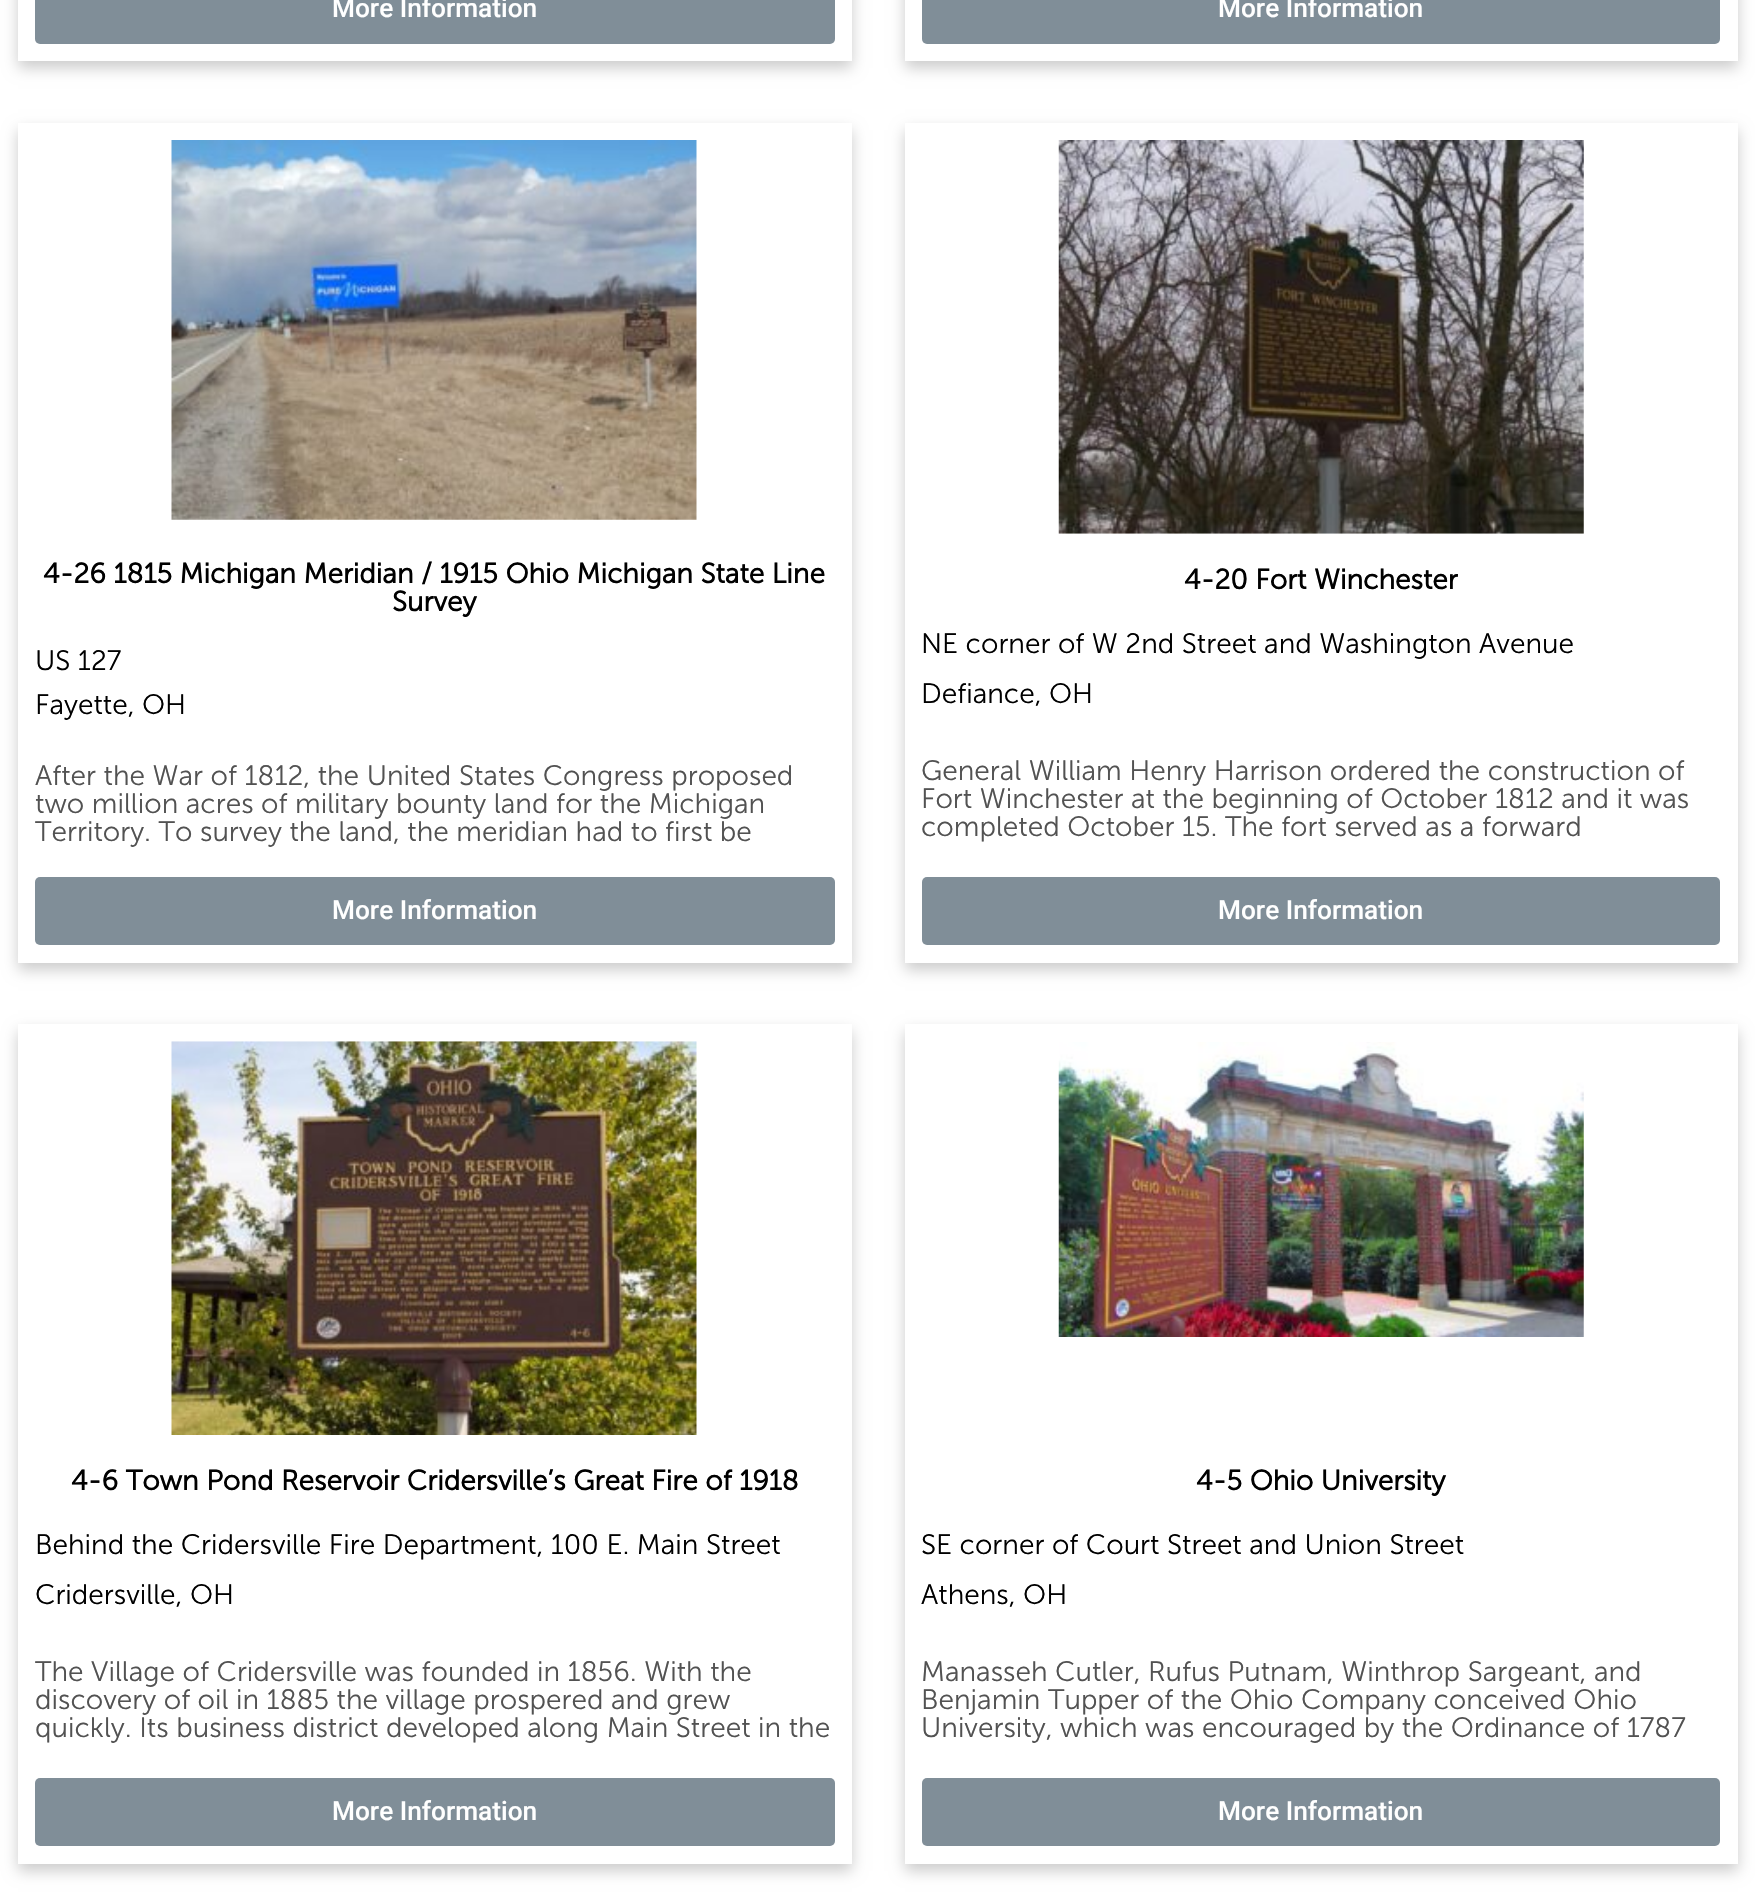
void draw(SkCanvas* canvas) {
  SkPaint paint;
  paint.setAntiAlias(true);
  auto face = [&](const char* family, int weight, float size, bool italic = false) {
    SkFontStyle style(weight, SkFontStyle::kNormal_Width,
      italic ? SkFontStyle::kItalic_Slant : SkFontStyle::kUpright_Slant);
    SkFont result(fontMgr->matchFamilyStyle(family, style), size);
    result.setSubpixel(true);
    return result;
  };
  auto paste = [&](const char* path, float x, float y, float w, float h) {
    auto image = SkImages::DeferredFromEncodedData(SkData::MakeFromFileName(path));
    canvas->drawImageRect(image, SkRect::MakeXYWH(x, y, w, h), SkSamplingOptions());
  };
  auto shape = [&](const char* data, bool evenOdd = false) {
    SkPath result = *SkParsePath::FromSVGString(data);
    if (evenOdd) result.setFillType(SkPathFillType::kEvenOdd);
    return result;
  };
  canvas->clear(0xffffffff);
  canvas->save();
  canvas->clipPath(shape("M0 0H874V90H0ZM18-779H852V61H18Z", true), true);
  paint.setColor(0x33000000);
  paint.setMaskFilter(SkMaskFilter::MakeBlur(kNormal_SkBlurStyle, 7));
  canvas->drawRect(SkRect::MakeXYWH(18, -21, 834, 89), paint);
  paint.setMaskFilter(nullptr);
  canvas->restore();
  paint.setColor(0xff808e98);
  canvas->drawRoundRect(SkRect::MakeXYWH(35, -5, 800, 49), 5, 5, paint);
  canvas->save();
  canvas->clipPath(shape("M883 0H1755V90H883ZM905-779H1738V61H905Z", true), true);
  paint.setColor(0x33000000);
  paint.setMaskFilter(SkMaskFilter::MakeBlur(kNormal_SkBlurStyle, 7));
  canvas->drawRect(SkRect::MakeXYWH(905, -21, 833, 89), paint);
  paint.setMaskFilter(nullptr);
  canvas->restore();
  paint.setColor(0xff808e98);
  canvas->drawRoundRect(SkRect::MakeXYWH(922, -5, 798, 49), 5, 5, paint);
  canvas->save();
  canvas->clipPath(shape("M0 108H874V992H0ZM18 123H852V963H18Z", true), true);
  paint.setColor(0x33000000);
  paint.setMaskFilter(SkMaskFilter::MakeBlur(kNormal_SkBlurStyle, 7));
  canvas->drawRect(SkRect::MakeXYWH(18, 130, 834, 840), paint);
  paint.setMaskFilter(nullptr);
  canvas->restore();
  paste("img/1.png", 171, 140, 526, 380);
  paint.setColor(0xff808e98);
  canvas->drawRoundRect(SkRect::MakeXYWH(35, 877, 800, 68), 5, 5, paint);
  canvas->save();
  canvas->clipPath(shape("M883 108H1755V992H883ZM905 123H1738V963H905Z", true), true);
  paint.setColor(0x33000000);
  paint.setMaskFilter(SkMaskFilter::MakeBlur(kNormal_SkBlurStyle, 7));
  canvas->drawRect(SkRect::MakeXYWH(905, 130, 833, 840), paint);
  paint.setMaskFilter(nullptr);
  canvas->restore();
  paste("img/2.png", 1058, 140, 526, 394);
  paint.setColor(0xff808e98);
  canvas->drawRoundRect(SkRect::MakeXYWH(922, 877, 798, 68), 5, 5, paint);
  canvas->save();
  canvas->clipPath(shape("M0 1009H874V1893H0ZM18 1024H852V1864H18Z", true), true);
  paint.setColor(0x33000000);
  paint.setMaskFilter(SkMaskFilter::MakeBlur(kNormal_SkBlurStyle, 7));
  canvas->drawRect(SkRect::MakeXYWH(18, 1031, 834, 840), paint);
  paint.setMaskFilter(nullptr);
  canvas->restore();
  paste("img/3.png", 171, 1041, 526, 394);
  paint.setColor(0xff808e98);
  canvas->drawRoundRect(SkRect::MakeXYWH(35, 1778, 800, 68), 5, 5, paint);
  canvas->save();
  canvas->clipPath(shape("M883 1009H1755V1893H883ZM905 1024H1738V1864H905Z", true), true);
  paint.setColor(0x33000000);
  paint.setMaskFilter(SkMaskFilter::MakeBlur(kNormal_SkBlurStyle, 7));
  canvas->drawRect(SkRect::MakeXYWH(905, 1031, 833, 840), paint);
  paint.setMaskFilter(nullptr);
  canvas->restore();
  paste("img/4.png", 1058, 1042, 526, 295);
  paint.setColor(0xff808e98);
  canvas->drawRoundRect(SkRect::MakeXYWH(922, 1778, 798, 68), 5, 5, paint);
  auto f0 = face("Roboto", 500, 26.25f);
  paint.setColor(0xffffffff);
  canvas->drawString("More Information", 332, 17, f0, paint);
  canvas->drawString("More Information", 1218, 17, f0, paint);
  auto f1 = face("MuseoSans", 700, 28);
  paint.setColor(0xff000000);
  canvas->drawString("4-26 1815 Michigan Meridian / 1915 Ohio Michigan State Line", 43, 583, f1, paint);
  canvas->drawString("Survey", 392, 611, f1, paint);
  auto f2 = face("MuseoSans", 400, 28);
  canvas->drawString("US 127", 35, 670, f2, paint);
  canvas->drawString("Fayette, OH", 35, 714, f2, paint);
  paint.setColor(0xff525252);
  {
    const struct { const char* s; float x, y; } items[] = {
      {"After the War of 1812, the United States Congress proposed", 35, 785},
      {"two million acres of military bounty land for the Michigan", 35, 813},
      {"Territory. To survey the land, the meridian had to first be", 35, 841},
    };
    for (auto [s, x, y] : items) {
      canvas->drawString(s, x, y, f2, paint);
    }
  }
  paint.setColor(0xffffffff);
  canvas->drawString("More Information", 332, 919, f0, paint);
  paint.setColor(0xff000000);
  canvas->drawString("4-20 Fort Winchester", 1184, 589, f1, paint);
  canvas->drawString("NE corner of W 2nd Street and Washington Avenue", 921, 653, f2, paint);
  canvas->drawString("Defiance, OH", 921, 703, f2, paint);
  paint.setColor(0xff525252);
  {
    const struct { const char* s; float x, y; } items[] = {
      {"General William Henry Harrison ordered the construction of", 921, 780},
      {"Fort Winchester at the beginning of October 1812 and it was", 921, 808},
      {"completed October 15. The fort served as a forward", 921, 836},
    };
    for (auto [s, x, y] : items) {
      canvas->drawString(s, x, y, f2, paint);
    }
  }
  paint.setColor(0xffffffff);
  canvas->drawString("More Information", 1218, 919, f0, paint);
  paint.setColor(0xff000000);
  canvas->drawString("4-6 Town Pond Reservoir Cridersville’s Great Fire of 1918", 71, 1490, f1, paint);
  canvas->drawString("Behind the Cridersville Fire Department, 100 E. Main Street", 35, 1554, f2, paint);
  canvas->drawString("Cridersville, OH", 35, 1604, f2, paint);
  paint.setColor(0xff525252);
  {
    const struct { const char* s; float x, y; } items[] = {
      {"The Village of Cridersville was founded in 1856. With the", 35, 1681},
      {"discovery of oil in 1885 the village prospered and grew", 35, 1709},
      {"quickly. Its business district developed along Main Street in the", 35, 1737},
    };
    for (auto [s, x, y] : items) {
      canvas->drawString(s, x, y, f2, paint);
    }
  }
  paint.setColor(0xffffffff);
  canvas->drawString("More Information", 332, 1820, f0, paint);
  paint.setColor(0xff000000);
  canvas->drawString("4-5 Ohio University", 1196, 1490, f1, paint);
  canvas->drawString("SE corner of Court Street and Union Street", 921, 1554, f2, paint);
  canvas->drawString("Athens, OH", 921, 1604, f2, paint);
  paint.setColor(0xff525252);
  {
    const struct { const char* s; float x, y; } items[] = {
      {"Manasseh Cutler, Rufus Putnam, Winthrop Sargeant, and", 921, 1681},
      {"Benjamin Tupper of the Ohio Company conceived Ohio", 921, 1709},
      {"University, which was encouraged by the Ordinance of 1787", 921, 1737},
    };
    for (auto [s, x, y] : items) {
      canvas->drawString(s, x, y, f2, paint);
    }
  }
  paint.setColor(0xffffffff);
  canvas->drawString("More Information", 1218, 1820, f0, paint);
}
